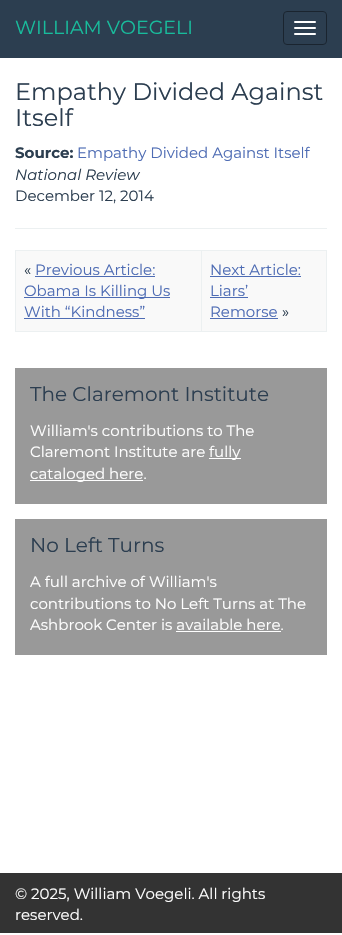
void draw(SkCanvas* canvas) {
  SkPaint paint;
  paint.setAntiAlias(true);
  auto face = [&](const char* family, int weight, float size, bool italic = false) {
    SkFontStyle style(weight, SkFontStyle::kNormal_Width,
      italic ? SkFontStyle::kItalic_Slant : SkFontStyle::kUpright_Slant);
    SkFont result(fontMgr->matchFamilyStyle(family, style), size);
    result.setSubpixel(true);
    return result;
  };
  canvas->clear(0xffffffff);
  paint.setColor(0xff2c3e50);
  canvas->drawRect(SkRect::MakeXYWH(0, 0, 342, 58), paint);
  paint.setStroke(true);
  paint.setStrokeWidth(1);
  paint.setColor(0xff1a242f);
  canvas->drawRoundRect(SkRect::MakeXYWH(283.5f, 11.5f, 43, 33), 3.5f, 3.5f, paint);
  paint.setStroke(false);
  paint.setColor(0xffffffff);
  canvas->drawRoundRect(SkRect::MakeXYWH(294, 21, 22, 2), 1, 1, paint);
  canvas->drawRoundRect(SkRect::MakeXYWH(294, 27, 22, 2), 1, 1, paint);
  canvas->drawRoundRect(SkRect::MakeXYWH(294, 33, 22, 2), 1, 1, paint);
  {
    const struct { float x, y, w, h; SkColor color; } items[] = {
      {15, 228, 312, 1, 0xffecf0f1},
      {15, 250, 312, 1, 0xffecf0f1},
      {326, 250, 1, 82, 0xffecf0f1},
      {15, 331, 312, 1, 0xffecf0f1},
      {15, 250, 1, 82, 0xffecf0f1},
      {16, 251, 185, 80, 0xfff9f9f9},
      {35, 276, 120, 1, 0xff4e6cb4},
      {24, 297, 146, 1, 0xff4e6cb4},
      {24, 318, 121, 1, 0xff4e6cb4},
      {202, 251, 124, 80, 0xfff9f9f9},
      {201, 250, 1, 82, 0xffecf0f1},
      {210, 276, 91, 1, 0xff4e6cb4},
      {210, 297, 38, 1, 0xff4e6cb4},
      {210, 318, 68, 1, 0xff4e6cb4},
      {15, 368, 312, 136, 0xff999999},
      {209, 458, 32, 1, 0xffffffff},
      {30, 480, 113, 1, 0xffffffff},
      {15, 519, 312, 136, 0xff999999},
      {176, 631, 105, 1, 0xffffffff},
      {0, 873, 342, 60, 0xff333333},
    };
    for (auto [x, y, w, h, color] : items) {
      paint.setColor(color);
      canvas->drawRect(SkRect::MakeXYWH(x, y, w, h), paint);
    }
  }
  auto f0 = face("Montserrat", 400, 19);
  paint.setColor(0xff18bc9c);
  canvas->drawString("WILLIAM VOEGELI", 15, 34, f0, paint);
  auto f1 = face("Montserrat", 400, 24);
  paint.setColor(0xff2c3e50);
  canvas->drawString("Empathy Divided Against", 15, 100, f1, paint);
  canvas->drawString("Itself", 15, 126, f1, paint);
  auto f2 = face("Montserrat", 700, 15);
  canvas->drawString("Source:", 15, 158, f2, paint);
  auto f3 = face("Montserrat", 400, 15);
  paint.setColor(0xff4e6cb4);
  canvas->drawString("Empathy Divided Against Itself", 77, 158, f3, paint);
  auto f4 = face("Montserrat", 400, 15, true);
  paint.setColor(0xff2c3e50);
  canvas->drawString("National Review", 15, 180, f4, paint);
  canvas->drawString("December 12, 2014", 15, 201, f3, paint);
  canvas->drawString("«", 24, 275, f3, paint);
  paint.setColor(0xff4e6cb4);
  {
    const struct { const char* s; float x, y; } items[] = {
      {"Previous Article:", 35, 275},
      {"Obama Is Killing Us", 24, 296},
      {"With “Kindness”", 24, 317},
      {"Next Article:", 210, 275},
      {"Liars’", 210, 296},
      {"Remorse", 210, 317},
    };
    for (auto [s, x, y] : items) {
      canvas->drawString(s, x, y, f3, paint);
    }
  }
  paint.setColor(0xff2c3e50);
  canvas->drawString("»", 282, 317, f3, paint);
  auto f5 = face("Montserrat", 400, 20);
  canvas->drawString("The Claremont Institute", 30, 401, f5, paint);
  paint.setColor(0xffffffff);
  {
    const struct { const char* s; float x, y; } items[] = {
      {"William's contributions to The", 30, 436},
      {"Claremont Institute are", 30, 457},
      {"fully", 209, 457},
      {"cataloged here.", 30, 479},
    };
    for (auto [s, x, y] : items) {
      canvas->drawString(s, x, y, f3, paint);
    }
  }
  paint.setColor(0xff2c3e50);
  canvas->drawString("No Left Turns", 30, 552, f5, paint);
  paint.setColor(0xffffffff);
  {
    const struct { const char* s; float x, y; } items[] = {
      {"A full archive of William's", 30, 587},
      {"contributions to No Left Turns at The", 30, 609},
      {"Ashbrook Center is available here.", 30, 630},
      {"© 2025, William Voegeli. All rights", 15, 899},
      {"reserved.", 15, 920},
    };
    for (auto [s, x, y] : items) {
      canvas->drawString(s, x, y, f3, paint);
    }
  }
}
